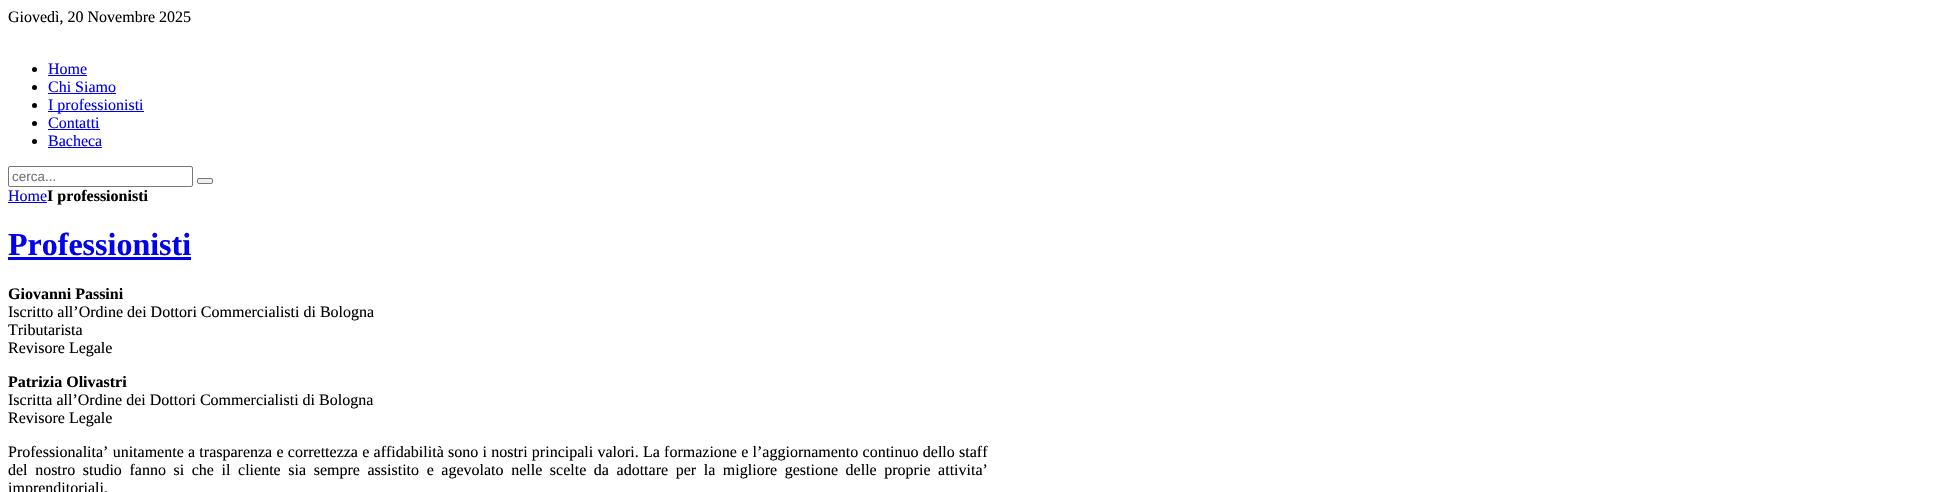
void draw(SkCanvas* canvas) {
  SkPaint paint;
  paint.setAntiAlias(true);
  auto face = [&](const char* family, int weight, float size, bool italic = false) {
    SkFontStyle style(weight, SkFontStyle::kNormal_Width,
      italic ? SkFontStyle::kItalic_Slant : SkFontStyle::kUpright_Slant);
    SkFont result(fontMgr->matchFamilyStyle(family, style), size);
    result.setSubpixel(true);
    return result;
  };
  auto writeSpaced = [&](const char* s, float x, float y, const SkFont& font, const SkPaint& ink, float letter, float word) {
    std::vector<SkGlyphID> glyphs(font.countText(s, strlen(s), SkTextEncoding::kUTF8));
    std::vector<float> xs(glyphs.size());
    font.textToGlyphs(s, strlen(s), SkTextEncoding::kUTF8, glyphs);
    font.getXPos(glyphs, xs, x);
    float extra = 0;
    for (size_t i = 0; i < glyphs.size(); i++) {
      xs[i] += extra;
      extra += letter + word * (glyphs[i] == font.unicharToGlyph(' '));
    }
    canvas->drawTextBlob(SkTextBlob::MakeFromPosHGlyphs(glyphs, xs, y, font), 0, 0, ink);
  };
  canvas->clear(0xffffffff);
  paint.setColor(0xff000000);
  canvas->drawCircle(34.5f, 69.5f, 2.5f, paint);
  paint.setColor(0xff0000ee);
  canvas->drawRect(SkRect::MakeXYWH(48, 75, 39, 1), paint);
  paint.setColor(0xff000000);
  canvas->drawCircle(34.5f, 87.5f, 2.5f, paint);
  paint.setColor(0xff0000ee);
  canvas->drawRect(SkRect::MakeXYWH(48, 93, 68, 1), paint);
  paint.setColor(0xff000000);
  canvas->drawCircle(34.5f, 105.5f, 2.5f, paint);
  paint.setColor(0xff0000ee);
  canvas->drawRect(SkRect::MakeXYWH(48, 111, 96, 1), paint);
  paint.setColor(0xff000000);
  canvas->drawCircle(34.5f, 123.5f, 2.5f, paint);
  paint.setColor(0xff0000ee);
  canvas->drawRect(SkRect::MakeXYWH(48, 129, 52, 1), paint);
  paint.setColor(0xff000000);
  canvas->drawCircle(34.5f, 141.5f, 2.5f, paint);
  paint.setColor(0xff0000ee);
  canvas->drawRect(SkRect::MakeXYWH(48, 147, 54, 1), paint);
  paint.setStroke(true);
  paint.setStrokeWidth(1);
  paint.setColor(0xff767676);
  canvas->drawRoundRect(SkRect::MakeXYWH(8.5f, 166.5f, 184, 20), 1.5f, 1.5f, paint);
  paint.setStroke(false);
  paint.setColor(0xffefefef);
  canvas->drawRoundRect(SkRect::MakeXYWH(197.5f, 178.5f, 15, 5), 1.5f, 1.5f, paint);
  paint.setStroke(true);
  paint.setColor(0xff767676);
  canvas->drawRoundRect(SkRect::MakeXYWH(197.5f, 178.5f, 15, 5), 1.5f, 1.5f, paint);
  paint.setStroke(false);
  paint.setColor(0xff0000ee);
  canvas->drawRect(SkRect::MakeXYWH(8, 202, 39, 1), paint);
  canvas->drawRect(SkRect::MakeXYWH(8, 257, 183, 3), paint);
  auto f0 = face("Liberation Serif", 400, 16);
  paint.setColor(0xff000000);
  canvas->drawString("Giovedì, 20 Novembre 2025", 8, 22, f0, paint);
  paint.setColor(0xff0000ee);
  {
    const struct { const char* s; float x, y; } items[] = {
      {"Home", 48, 74},
      {"Chi Siamo", 48, 92},
      {"I professionisti", 48, 110},
      {"Contatti", 48, 128},
      {"Bacheca", 48, 146},
    };
    for (auto [s, x, y] : items) {
      canvas->drawString(s, x, y, f0, paint);
    }
  }
  auto f1 = face("Liberation Sans", 400, 13.5f);
  paint.setColor(0xff757575);
  canvas->drawString("cerca...", 12, 181, f1, paint);
  paint.setColor(0xff0000ee);
  canvas->drawString("Home", 8, 201, f0, paint);
  auto f2 = face("Liberation Serif", 700, 16);
  paint.setColor(0xff000000);
  canvas->drawString("I professionisti", 47, 201, f2, paint);
  auto f3 = face("Liberation Serif", 700, 32);
  paint.setColor(0xff0000ee);
  canvas->drawString("Professionisti", 8, 255, f3, paint);
  paint.setColor(0xff000000);
  canvas->drawString("Giovanni Passini", 8, 299, f2, paint);
  {
    const struct { const char* s; float x, y; } items[] = {
      {"Iscritto all’Ordine dei Dottori Commercialisti di Bologna", 8, 317},
      {"Tributarista", 8, 335},
      {"Revisore Legale", 8, 353},
    };
    for (auto [s, x, y] : items) {
      canvas->drawString(s, x, y, f0, paint);
    }
  }
  canvas->drawString("Patrizia Olivastri", 8, 387, f2, paint);
  canvas->drawString("Iscritta all’Ordine dei Dottori Commercialisti di Bologna", 8, 405, f0, paint);
  canvas->drawString("Revisore Legale", 8, 423, f0, paint);
  writeSpaced("Professionalita’ unitamente a trasparenza e correttezza e affidabilità sono i nostri principali valori. La formazione e l’aggiornamento continuo dello staff", 8, 457, f0, paint, 0, 0.25f);
  writeSpaced("del nostro studio fanno si che il cliente sia sempre assistito e agevolato nelle scelte da adottare per la migliore gestione delle proprie attivita’", 8, 475, f0, paint, 0, 3.6f);
  canvas->drawString("imprenditoriali.", 8, 493, f0, paint);
}
